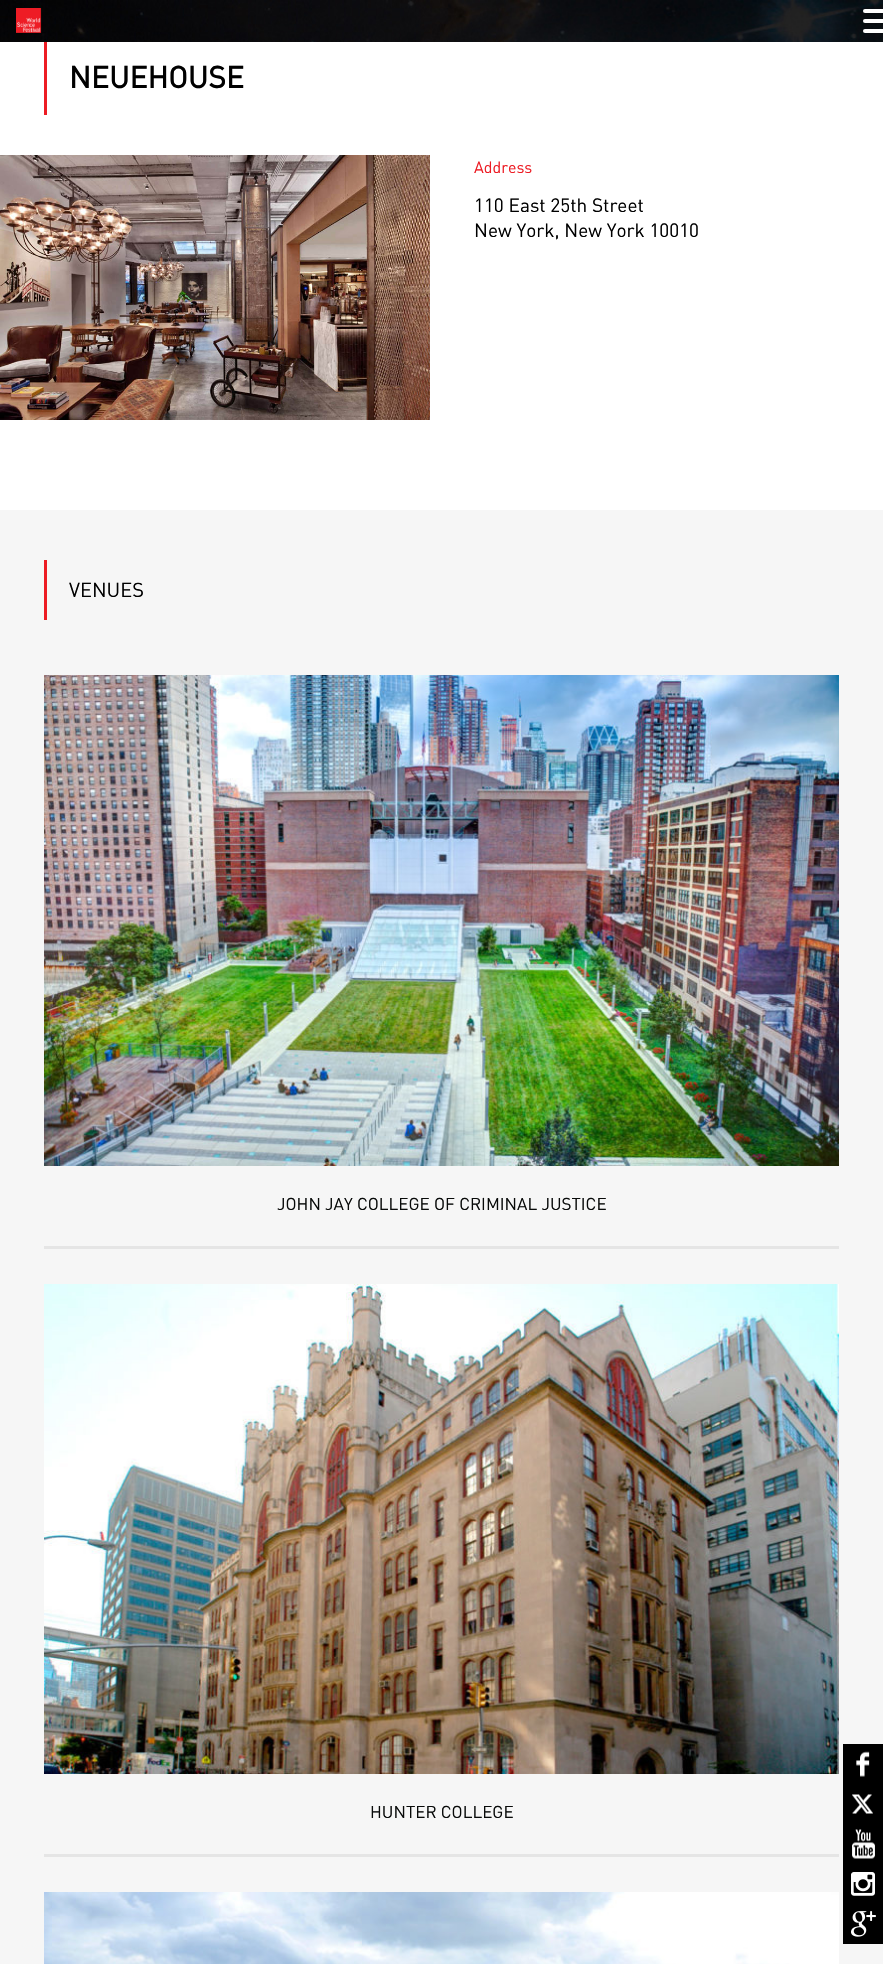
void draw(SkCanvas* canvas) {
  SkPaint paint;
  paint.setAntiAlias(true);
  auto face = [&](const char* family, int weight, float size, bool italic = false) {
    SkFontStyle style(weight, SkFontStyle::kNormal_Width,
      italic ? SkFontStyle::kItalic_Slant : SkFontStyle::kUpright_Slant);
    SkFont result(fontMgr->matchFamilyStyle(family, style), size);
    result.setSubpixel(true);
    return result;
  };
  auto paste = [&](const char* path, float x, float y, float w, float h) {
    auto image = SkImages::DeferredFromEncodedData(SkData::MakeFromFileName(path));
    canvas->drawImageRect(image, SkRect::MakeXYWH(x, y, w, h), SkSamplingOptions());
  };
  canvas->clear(0xffffffff);
  paste("img/1.png", 0, 0, 883, 42);
  paste("img/2.png", 16, 8, 26, 25);
  paint.setColor(0xffffffff);
  canvas->drawRoundRect(SkRect::MakeXYWH(863, 9, 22, 4), 2, 2, paint);
  canvas->drawRoundRect(SkRect::MakeXYWH(863, 19, 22, 4), 2, 2, paint);
  canvas->drawRoundRect(SkRect::MakeXYWH(863, 29, 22, 4), 2, 2, paint);
  paint.setColor(0xffed1c24);
  canvas->drawRect(SkRect::MakeXYWH(44, 42, 3, 73), paint);
  paste("img/3.png", 0, 155, 430, 265);
  {
    const struct { float x, y, w, h; SkColor color; } items[] = {
      {0, 510, 883, 1454, 0xfff6f6f6},
      {44, 560, 3, 60, 0xffed1c24},
      {44, 1246, 795, 3, 0xffe5e5e5},
    };
    for (auto [x, y, w, h, color] : items) {
      paint.setColor(color);
      canvas->drawRect(SkRect::MakeXYWH(x, y, w, h), paint);
    }
  }
  paste("img/4.png", 44, 675, 795, 491);
  canvas->drawRect(SkRect::MakeXYWH(44, 1854, 795, 3), paint);
  paste("img/5.png", 44, 1284, 795, 490);
  paste("img/6.png", 44, 1892, 795, 72);
  paint.setColor(0xff000000);
  canvas->drawRect(SkRect::MakeXYWH(843, 1744, 40, 200), paint);
  paste("img/7.png", 856, 1751, 14, 26);
  paste("img/8.png", 852, 1794, 21, 20);
  paste("img/9.png", 852, 1829, 23, 30);
  paste("img/10.png", 851, 1872, 24, 24);
  paste("img/11.png", 851, 1911, 25, 26);
  auto f0 = face("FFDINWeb", 700, 30);
  canvas->drawString("NEUEHOUSE", 69, 88, f0, paint);
  auto f1 = face("FFDINWeb", 400, 16);
  paint.setColor(0xffed1c24);
  canvas->drawString("Address", 474, 173, f1, paint);
  auto f2 = face("FFDINWeb", 400, 19);
  paint.setColor(0xff000000);
  canvas->drawString("110 East 25th Street", 474, 212, f2, paint);
  canvas->drawString("New York, New York 10010", 474, 237, f2, paint);
  auto f3 = face("FFDINWeb", 400, 20);
  canvas->drawString("VENUES", 69, 597, f3, paint);
  auto f4 = face("FFDINWeb", 400, 17);
  paint.setColor(0xff080a09);
  canvas->drawString("JOHN JAY COLLEGE OF CRIMINAL JUSTICE", 277, 1210, f4, paint);
  canvas->drawString("HUNTER COLLEGE", 370, 1818, f4, paint);
}
